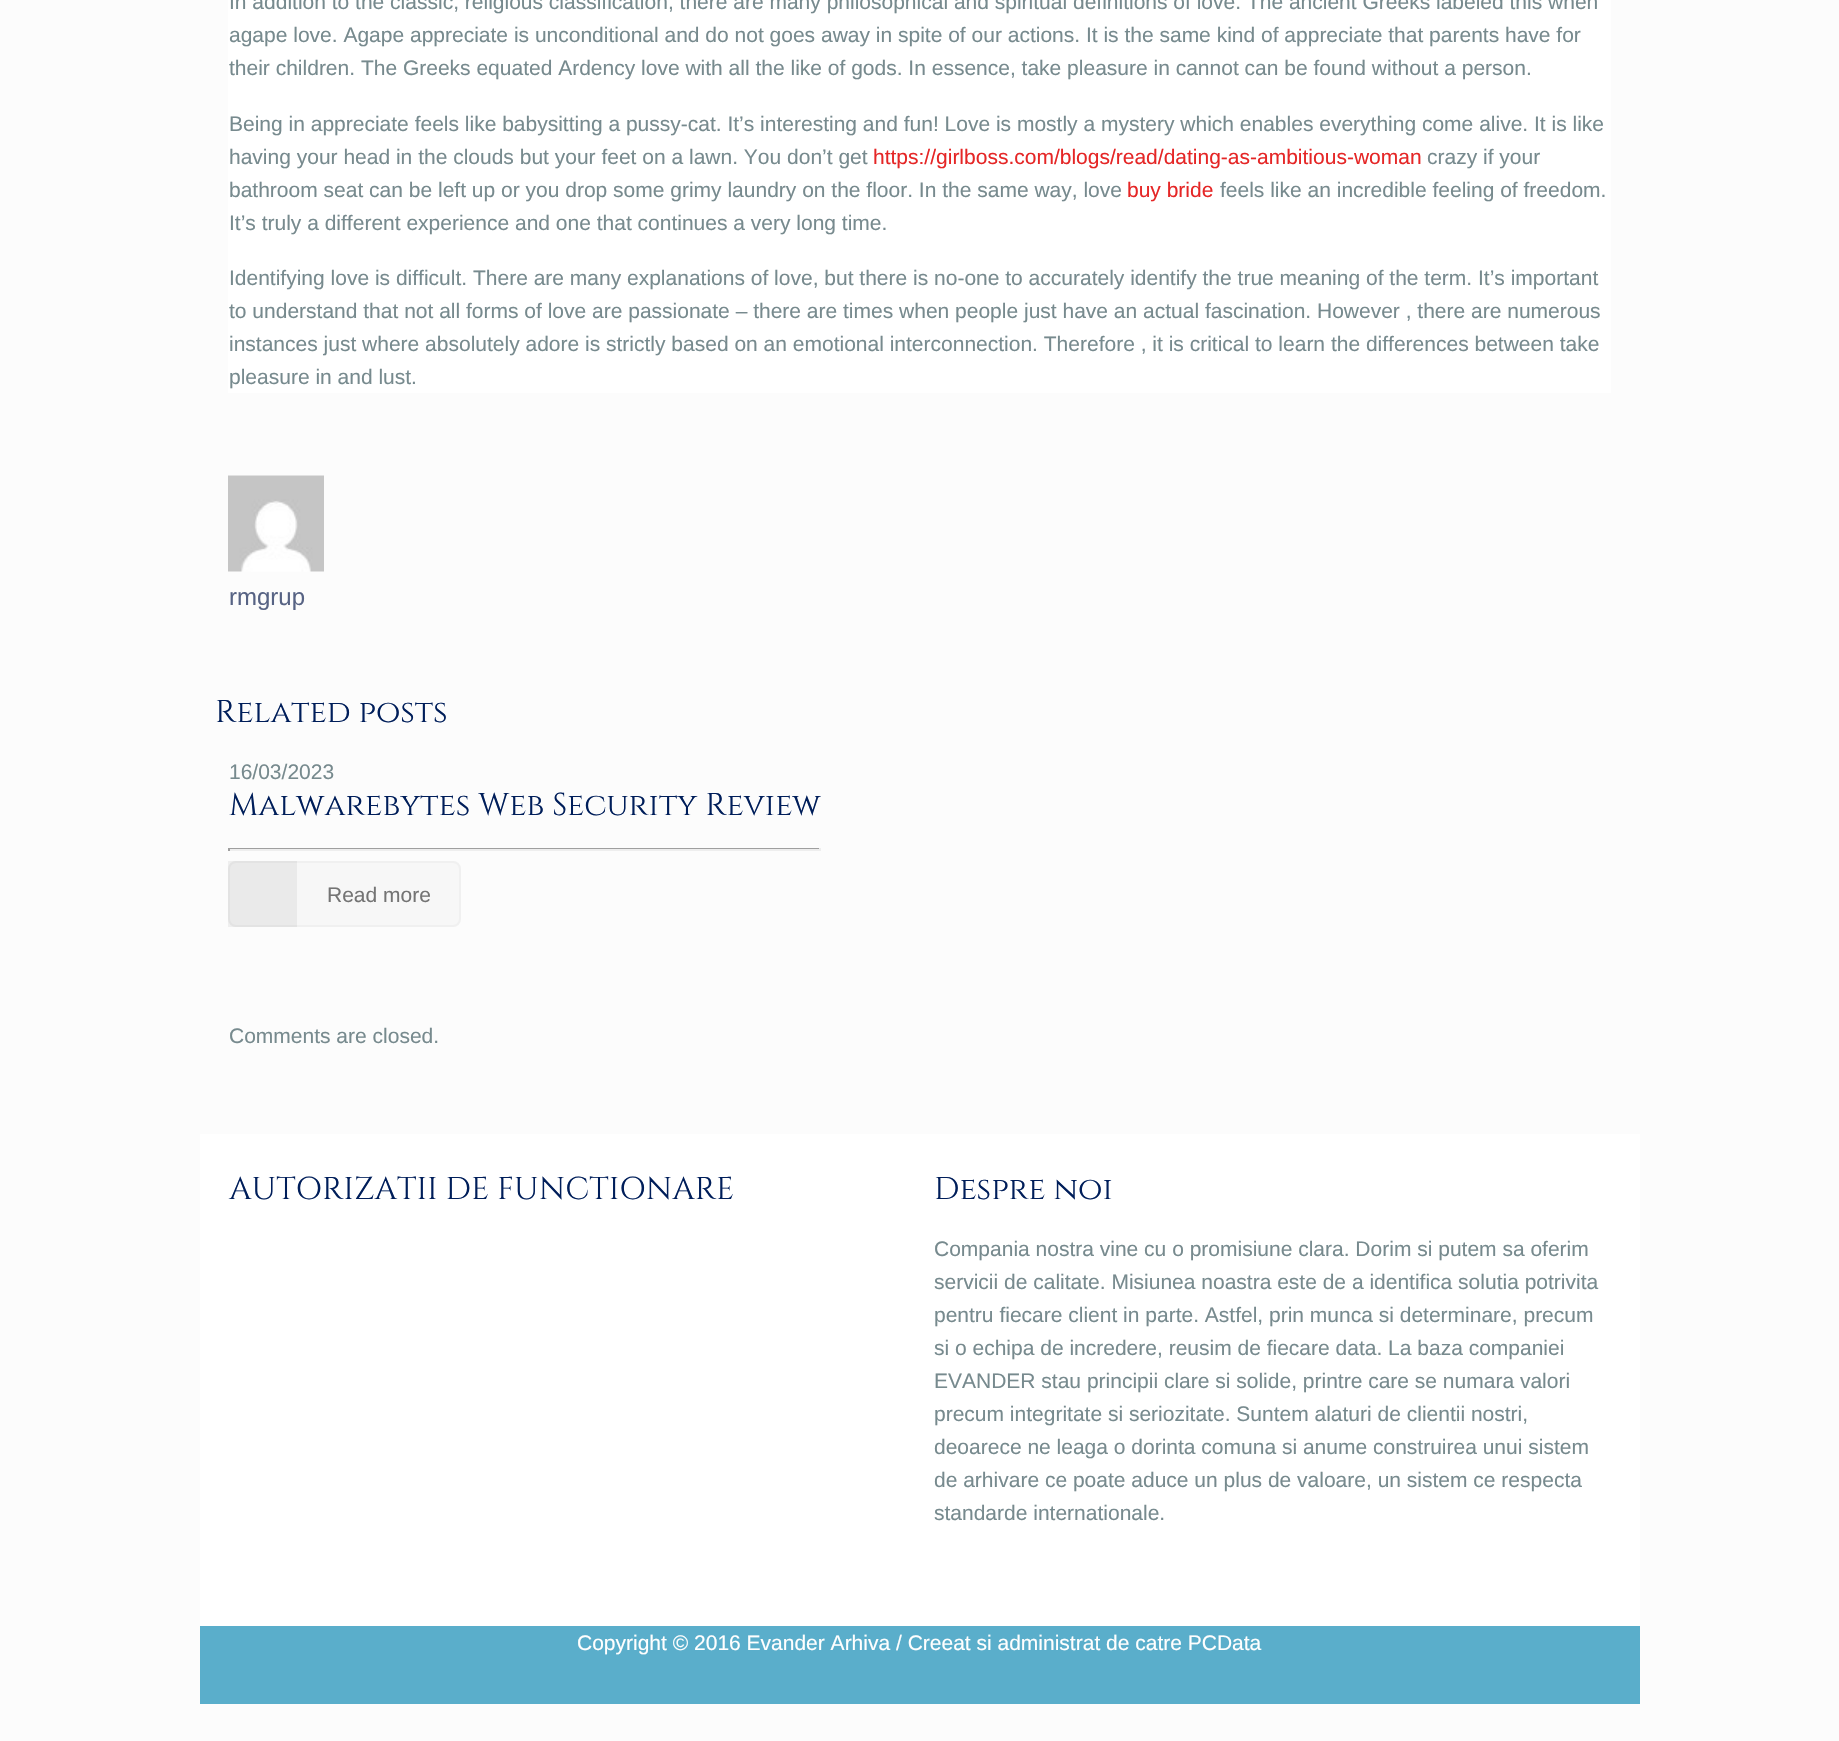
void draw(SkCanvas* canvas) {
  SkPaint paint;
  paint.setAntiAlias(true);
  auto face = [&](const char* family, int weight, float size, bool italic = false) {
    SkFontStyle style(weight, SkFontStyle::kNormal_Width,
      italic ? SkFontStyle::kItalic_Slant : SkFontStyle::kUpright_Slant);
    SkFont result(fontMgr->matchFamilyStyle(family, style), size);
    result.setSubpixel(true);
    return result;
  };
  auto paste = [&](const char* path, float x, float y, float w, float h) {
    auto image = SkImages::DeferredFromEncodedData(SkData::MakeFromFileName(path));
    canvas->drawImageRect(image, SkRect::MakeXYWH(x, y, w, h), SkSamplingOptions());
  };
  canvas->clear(0xfffcfcfc);
  paint.setColor(0xffffffff);
  canvas->drawRect(SkRect::MakeXYWH(228, 0, 1383, 393), paint);
  paste("img/1.png", 228, 475, 96, 97);
  {
    const struct { float x, y, w, h; SkColor color; } items[] = {
      {228, 848, 593, 1, 0xff9f9f9f},
      {819, 848, 2, 3, 0xffeeeeee},
      {228, 849, 593, 2, 0xffeeeeee},
      {228, 848, 2, 3, 0xff9f9f9f},
    };
    for (auto [x, y, w, h, color] : items) {
      paint.setColor(color);
      canvas->drawRect(SkRect::MakeXYWH(x, y, w, h), paint);
    }
  }
  paint.setColor(0xfff7f7f7);
  canvas->drawRoundRect(SkRect::MakeXYWH(229, 862, 231, 64), 7, 7, paint);
  paint.setStroke(true);
  paint.setStrokeWidth(2);
  paint.setColor(0xfff0f0f0);
  canvas->drawRoundRect(SkRect::MakeXYWH(229, 862, 231, 64), 7, 7, paint);
  paint.setStroke(false);
  {
    const struct { float x, y, w, h; SkColor color; } items[] = {
      {228, 861, 69, 66, 0x0d000000},
      {200, 1134, 1440, 492, 0xffffffff},
      {200, 1626, 1440, 78, 0xff5aaecb},
    };
    for (auto [x, y, w, h, color] : items) {
      paint.setColor(color);
      canvas->drawRect(SkRect::MakeXYWH(x, y, w, h), paint);
    }
  }
  auto f0 = face("Liberation Sans", 400, 21);
  paint.setColor(0xff778a8e);
  {
    const struct { const char* s; float x, y; } items[] = {
      {"In addition to the classic, religious classification, there are many philosophical and spiritual definitions of love. The ancient Greeks labeled this when", 229, 9},
      {"agape love. Agape appreciate is unconditional and do not goes away in spite of our actions. It is the same kind of appreciate that parents have for", 229, 42},
      {"their children. The Greeks equated Ardency love with all the like of gods. In essence, take pleasure in cannot can be found without a person.", 229, 75},
      {"Being in appreciate feels like babysitting a pussy-cat. It’s interesting and fun! Love is mostly a mystery which enables everything come alive. It is like", 229, 131},
      {"having your head in the clouds but your feet on a lawn. You don’t get", 229, 164},
    };
    for (auto [s, x, y] : items) {
      canvas->drawString(s, x, y, f0, paint);
    }
  }
  paint.setColor(0xffe52626);
  canvas->drawString("https://girlboss.com/blogs/read/dating-as-ambitious-woman", 873, 164, f0, paint);
  paint.setColor(0xff778a8e);
  canvas->drawString("crazy if your", 1427, 164, f0, paint);
  canvas->drawString("bathroom seat can be left up or you drop some grimy laundry on the floor. In the same way, love", 229, 197, f0, paint);
  paint.setColor(0xffe52626);
  canvas->drawString("buy bride", 1127, 197, f0, paint);
  paint.setColor(0xff778a8e);
  {
    const struct { const char* s; float x, y; } items[] = {
      {"feels like an incredible feeling of freedom.", 1220, 197},
      {"It’s truly a different experience and one that continues a very long time.", 229, 230},
      {"Identifying love is difficult. There are many explanations of love, but there is no-one to accurately identify the true meaning of the term. It’s important", 229, 285},
      {"to understand that not all forms of love are passionate – there are times when people just have an actual fascination. However , there are numerous", 229, 318},
      {"instances just where absolutely adore is strictly based on an emotional interconnection. Therefore , it is critical to learn the differences between take", 229, 351},
      {"pleasure in and lust.", 229, 384},
    };
    for (auto [s, x, y] : items) {
      canvas->drawString(s, x, y, f0, paint);
    }
  }
  auto f1 = face("Liberation Sans", 400, 24);
  paint.setColor(0xff576384);
  canvas->drawString("rmgrup", 229, 605, f1, paint);
  auto f2 = face("Cinzel", 400, 31.5f);
  paint.setColor(0xff001e5a);
  canvas->drawString("Related posts", 215, 722, f2, paint);
  paint.setColor(0xff778a8e);
  canvas->drawString("16/03/2023", 229, 779, f0, paint);
  paint.setColor(0xff001e5a);
  canvas->drawString("Malwarebytes Web Security Review", 229, 815, f2, paint);
  paint.setColor(0xff747474);
  canvas->drawString("Read more", 327, 902, f0, paint);
  paint.setColor(0xff778a8e);
  canvas->drawString("Comments are closed.", 229, 1043, f0, paint);
  paint.setColor(0xff001e5a);
  canvas->drawString("AUTORIZATII DE FUNCTIONARE", 229, 1199, f2, paint);
  canvas->drawString("Despre noi", 934, 1199, f2, paint);
  paint.setColor(0xff778a8e);
  {
    const struct { const char* s; float x, y; } items[] = {
      {"Compania nostra vine cu o promisiune clara. Dorim si putem sa oferim", 934, 1256},
      {"servicii de calitate. Misiunea noastra este de a identifica solutia potrivita", 934, 1289},
      {"pentru fiecare client in parte. Astfel, prin munca si determinare, precum", 934, 1322},
      {"si o echipa de incredere, reusim de fiecare data. La baza companiei", 934, 1355},
      {"EVANDER stau principii clare si solide, printre care se numara valori", 934, 1388},
      {"precum integritate si seriozitate. Suntem alaturi de clientii nostri,", 934, 1421},
      {"deoarece ne leaga o dorinta comuna si anume construirea unui sistem", 934, 1454},
      {"de arhivare ce poate aduce un plus de valoare, un sistem ce respecta", 934, 1487},
      {"standarde internationale.", 934, 1520},
    };
    for (auto [s, x, y] : items) {
      canvas->drawString(s, x, y, f0, paint);
    }
  }
  paint.setColor(0xffffffff);
  canvas->drawString("Copyright © 2016 Evander Arhiva / Creeat si administrat de catre PCData", 577, 1650, f0, paint);
}
